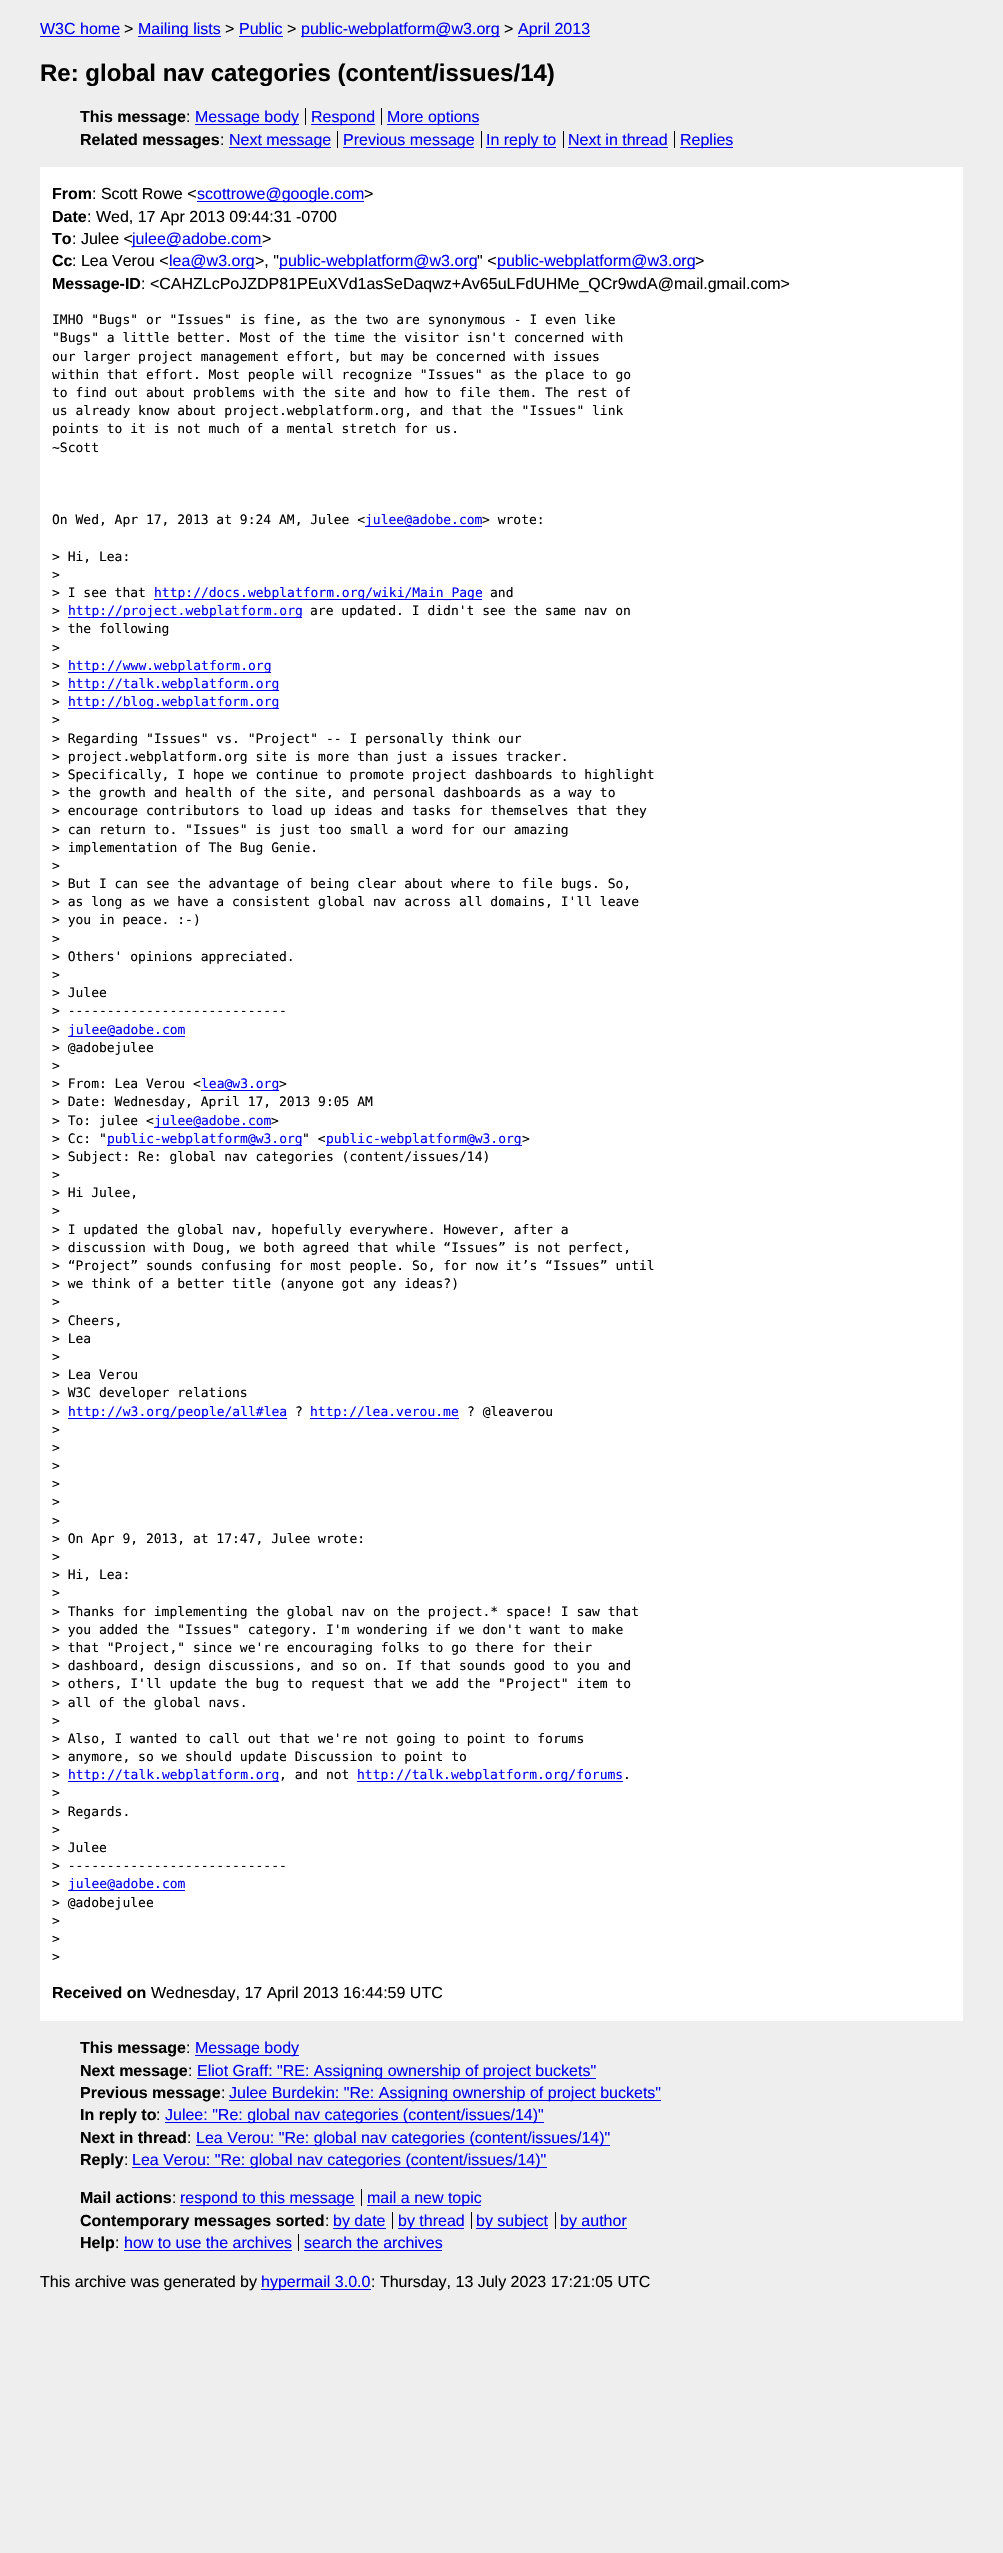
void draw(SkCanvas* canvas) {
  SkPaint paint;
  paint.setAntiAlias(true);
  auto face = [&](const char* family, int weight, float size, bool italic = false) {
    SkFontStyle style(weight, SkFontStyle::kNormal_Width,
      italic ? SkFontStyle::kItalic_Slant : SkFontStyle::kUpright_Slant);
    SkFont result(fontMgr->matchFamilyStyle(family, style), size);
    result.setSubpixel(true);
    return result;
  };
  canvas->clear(0xffeeeeee);
  {
    const struct { float x, y, w, h; SkColor color; } items[] = {
      {40, 36, 80, 1, 0xff0000ee},
      {138, 36, 83, 1, 0xff0000ee},
      {239, 36, 44, 1, 0xff0000ee},
      {301, 36, 199, 1, 0xff0000ee},
      {518, 36, 72, 1, 0xff0000ee},
      {195, 124, 104, 1, 0xff0000ee},
      {305, 108, 1, 17, 0xff000000},
      {311, 124, 64, 1, 0xff0000ee},
      {381, 108, 1, 17, 0xff000000},
      {387, 124, 92, 1, 0xff0000ee},
      {229, 147, 102, 1, 0xff0000ee},
      {337, 131, 1, 17, 0xff000000},
      {343, 147, 131, 1, 0xff0000ee},
      {481, 131, 1, 17, 0xff000000},
      {486, 147, 70, 1, 0xff0000ee},
      {563, 131, 1, 17, 0xff000000},
      {674, 131, 1, 17, 0xff000000},
      {568, 147, 100, 1, 0xff0000ee},
      {680, 147, 53, 1, 0xff0000ee},
      {40, 167, 923, 1854, 0xffffffff},
      {197, 201, 167, 1, 0xff0000ee},
      {132, 246, 130, 1, 0xff0000ee},
      {169, 268, 86, 1, 0xff0000ee},
      {279, 268, 198, 1, 0xff0000ee},
      {497, 268, 198, 1, 0xff0000ee},
      {365, 526, 117, 1, 0xff0000ee},
      {154, 599, 328, 1, 0xff0000ee},
      {68, 617, 234, 1, 0xff0000ee},
      {68, 672, 203, 1, 0xff0000ee},
      {68, 690, 211, 1, 0xff0000ee},
      {68, 708, 211, 1, 0xff0000ee},
      {68, 1036, 117, 1, 0xff0000ee},
      {201, 1090, 78, 1, 0xff0000ee},
      {154, 1127, 117, 1, 0xff0000ee},
      {107, 1145, 195, 1, 0xff0000ee},
      {326, 1145, 196, 1, 0xff0000ee},
      {68, 1418, 219, 1, 0xff0000ee},
      {310, 1418, 149, 1, 0xff0000ee},
      {68, 1781, 211, 1, 0xff0000ee},
      {357, 1781, 266, 1, 0xff0000ee},
      {68, 1890, 117, 1, 0xff0000ee},
      {195, 2055, 104, 1, 0xff0000ee},
      {197, 2078, 399, 1, 0xff0000ee},
      {229, 2100, 432, 1, 0xff0000ee},
      {165, 2122, 379, 1, 0xff0000ee},
      {196, 2145, 414, 1, 0xff0000ee},
      {132, 2167, 415, 1, 0xff0000ee},
      {180, 2205, 175, 1, 0xff0000ee},
      {361, 2189, 1, 17, 0xff000000},
      {367, 2205, 114, 1, 0xff0000ee},
      {333, 2228, 53, 1, 0xff0000ee},
      {392, 2212, 1, 17, 0xff000000},
      {398, 2228, 66, 1, 0xff0000ee},
      {471, 2212, 1, 17, 0xff000000},
      {476, 2228, 72, 1, 0xff0000ee},
      {555, 2212, 1, 17, 0xff000000},
      {560, 2228, 67, 1, 0xff0000ee},
      {124, 2250, 168, 1, 0xff0000ee},
      {298, 2234, 1, 17, 0xff000000},
      {304, 2250, 138, 1, 0xff0000ee},
      {261, 2289, 110, 1, 0xff0000ee},
    };
    for (auto [x, y, w, h, color] : items) {
      paint.setColor(color);
      canvas->drawRect(SkRect::MakeXYWH(x, y, w, h), paint);
    }
  }
  auto f0 = face("Liberation Sans", 400, 16);
  canvas->drawString("W3C home", 40, 34, f0, paint);
  paint.setColor(0xff000000);
  canvas->drawString(">", 124, 34, f0, paint);
  paint.setColor(0xff0000ee);
  canvas->drawString("Mailing lists", 138, 34, f0, paint);
  paint.setColor(0xff000000);
  canvas->drawString(">", 225, 34, f0, paint);
  paint.setColor(0xff0000ee);
  canvas->drawString("Public", 239, 34, f0, paint);
  paint.setColor(0xff000000);
  canvas->drawString(">", 287, 34, f0, paint);
  paint.setColor(0xff0000ee);
  canvas->drawString("public-webplatform@w3.org", 301, 34, f0, paint);
  paint.setColor(0xff000000);
  canvas->drawString(">", 504, 34, f0, paint);
  paint.setColor(0xff0000ee);
  canvas->drawString("April 2013", 518, 34, f0, paint);
  auto f1 = face("Liberation Sans", 700, 24);
  paint.setColor(0xff000000);
  canvas->drawString("Re: global nav categories (content/issues/14)", 40, 81, f1, paint);
  auto f2 = face("Liberation Sans", 700, 16);
  canvas->drawString("This message", 80, 122, f2, paint);
  canvas->drawString(":", 186, 122, f0, paint);
  paint.setColor(0xff0000ee);
  {
    const struct { const char* s; float x, y; } items[] = {
      {"Message body", 195, 122},
      {"Respond", 311, 122},
      {"More options", 387, 122},
    };
    for (auto [s, x, y] : items) {
      canvas->drawString(s, x, y, f0, paint);
    }
  }
  paint.setColor(0xff000000);
  canvas->drawString("Related messages", 80, 145, f2, paint);
  canvas->drawString(":", 220, 145, f0, paint);
  paint.setColor(0xff0000ee);
  {
    const struct { const char* s; float x, y; } items[] = {
      {"Next message", 229, 145},
      {"Previous message", 343, 145},
      {"In reply to", 486, 145},
      {"Next in thread", 568, 145},
      {"Replies", 680, 145},
    };
    for (auto [s, x, y] : items) {
      canvas->drawString(s, x, y, f0, paint);
    }
  }
  paint.setColor(0xff000000);
  canvas->drawString("From", 52, 199, f2, paint);
  canvas->drawString(": Scott Rowe <", 92, 199, f0, paint);
  paint.setColor(0xff0000ee);
  canvas->drawString("scottrowe@google.com", 197, 199, f0, paint);
  paint.setColor(0xff000000);
  canvas->drawString(">", 364, 199, f0, paint);
  canvas->drawString("Date", 52, 222, f2, paint);
  canvas->drawString(": Wed, 17 Apr 2013 09:44:31 -0700", 87, 222, f0, paint);
  canvas->drawString("To", 52, 244, f2, paint);
  canvas->drawString(": Julee <", 72, 244, f0, paint);
  paint.setColor(0xff0000ee);
  canvas->drawString("julee@adobe.com", 132, 244, f0, paint);
  paint.setColor(0xff000000);
  canvas->drawString(">", 262, 244, f0, paint);
  canvas->drawString("Cc", 52, 266, f2, paint);
  canvas->drawString(": Lea Verou <", 72, 266, f0, paint);
  paint.setColor(0xff0000ee);
  canvas->drawString("lea@w3.org", 169, 266, f0, paint);
  paint.setColor(0xff000000);
  canvas->drawString(">, \"", 255, 266, f0, paint);
  paint.setColor(0xff0000ee);
  canvas->drawString("public-webplatform@w3.org", 279, 266, f0, paint);
  paint.setColor(0xff000000);
  canvas->drawString("\" <", 477, 266, f0, paint);
  paint.setColor(0xff0000ee);
  canvas->drawString("public-webplatform@w3.org", 497, 266, f0, paint);
  paint.setColor(0xff000000);
  canvas->drawString(">", 695, 266, f0, paint);
  canvas->drawString("Message-ID", 52, 289, f2, paint);
  canvas->drawString(": <CAHZLcPoJZDP81PEuXVd1asSeDaqwz+Av65uLFdUHMe_QCr9wdA@mail.gmail.com>", 141, 289, f0, paint);
  auto f3 = face("DejaVu Sans Mono", 400, 13);
  {
    const struct { const char* s; float x, y; } items[] = {
      {"IMHO \"Bugs\" or \"Issues\" is fine, as the two are synonymous - I even like", 52, 324},
      {"\"Bugs\" a little better. Most of the time the visitor isn't concerned with", 52, 342},
      {"our larger project management effort, but may be concerned with issues", 52, 361},
      {"within that effort. Most people will recognize \"Issues\" as the place to go", 52, 379},
      {"to find out about problems with the site and how to file them. The rest of", 52, 397},
      {"us already know about project.webplatform.org, and that the \"Issues\" link", 52, 415},
      {"points to it is not much of a mental stretch for us.", 52, 433},
      {"~Scott", 52, 452},
      {"On Wed, Apr 17, 2013 at 9:24 AM, Julee <", 52, 524},
    };
    for (auto [s, x, y] : items) {
      canvas->drawString(s, x, y, f3, paint);
    }
  }
  paint.setColor(0xff0000ee);
  canvas->drawString("julee@adobe.com", 365, 524, f3, paint);
  paint.setColor(0xff000000);
  {
    const struct { const char* s; float x, y; } items[] = {
      {"> wrote:", 482, 524},
      {"> Hi, Lea:", 52, 561},
      {">", 52, 579},
      {"> I see that", 52, 597},
    };
    for (auto [s, x, y] : items) {
      canvas->drawString(s, x, y, f3, paint);
    }
  }
  paint.setColor(0xff0000ee);
  canvas->drawString("http://docs.webplatform.org/wiki/Main_Page", 154, 597, f3, paint);
  paint.setColor(0xff000000);
  canvas->drawString("and", 490, 597, f3, paint);
  canvas->drawString(">", 52, 615, f3, paint);
  paint.setColor(0xff0000ee);
  canvas->drawString("http://project.webplatform.org", 68, 615, f3, paint);
  paint.setColor(0xff000000);
  {
    const struct { const char* s; float x, y; } items[] = {
      {"are updated. I didn't see the same nav on", 310, 615},
      {"> the following", 52, 633},
      {">", 52, 652},
      {">", 52, 670},
    };
    for (auto [s, x, y] : items) {
      canvas->drawString(s, x, y, f3, paint);
    }
  }
  paint.setColor(0xff0000ee);
  canvas->drawString("http://www.webplatform.org", 68, 670, f3, paint);
  paint.setColor(0xff000000);
  canvas->drawString(">", 52, 688, f3, paint);
  paint.setColor(0xff0000ee);
  canvas->drawString("http://talk.webplatform.org", 68, 688, f3, paint);
  paint.setColor(0xff000000);
  canvas->drawString(">", 52, 706, f3, paint);
  paint.setColor(0xff0000ee);
  canvas->drawString("http://blog.webplatform.org", 68, 706, f3, paint);
  paint.setColor(0xff000000);
  {
    const struct { const char* s; float x, y; } items[] = {
      {">", 52, 724},
      {"> Regarding \"Issues\" vs. \"Project\" -- I personally think our", 52, 743},
      {"> project.webplatform.org site is more than just a issues tracker.", 52, 761},
      {"> Specifically, I hope we continue to promote project dashboards to highlight", 52, 779},
      {"> the growth and health of the site, and personal dashboards as a way to", 52, 797},
      {"> encourage contributors to load up ideas and tasks for themselves that they", 52, 815},
      {"> can return to. \"Issues\" is just too small a word for our amazing", 52, 834},
      {"> implementation of The Bug Genie.", 52, 852},
      {">", 52, 870},
      {"> But I can see the advantage of being clear about where to file bugs. So,", 52, 888},
      {"> as long as we have a consistent global nav across all domains, I'll leave", 52, 906},
      {"> you in peace. :-)", 52, 924},
      {">", 52, 943},
      {"> Others' opinions appreciated.", 52, 961},
      {">", 52, 979},
      {"> Julee", 52, 997},
      {"> ----------------------------", 52, 1015},
      {">", 52, 1034},
    };
    for (auto [s, x, y] : items) {
      canvas->drawString(s, x, y, f3, paint);
    }
  }
  paint.setColor(0xff0000ee);
  canvas->drawString("julee@adobe.com", 68, 1034, f3, paint);
  paint.setColor(0xff000000);
  {
    const struct { const char* s; float x, y; } items[] = {
      {"> @adobejulee", 52, 1052},
      {">", 52, 1070},
      {"> From: Lea Verou <", 52, 1088},
    };
    for (auto [s, x, y] : items) {
      canvas->drawString(s, x, y, f3, paint);
    }
  }
  paint.setColor(0xff0000ee);
  canvas->drawString("lea@w3.org", 201, 1088, f3, paint);
  paint.setColor(0xff000000);
  {
    const struct { const char* s; float x, y; } items[] = {
      {">", 279, 1088},
      {"> Date: Wednesday, April 17, 2013 9:05 AM", 52, 1106},
      {"> To: julee <", 52, 1125},
    };
    for (auto [s, x, y] : items) {
      canvas->drawString(s, x, y, f3, paint);
    }
  }
  paint.setColor(0xff0000ee);
  canvas->drawString("julee@adobe.com", 154, 1125, f3, paint);
  paint.setColor(0xff000000);
  canvas->drawString(">", 271, 1125, f3, paint);
  canvas->drawString("> Cc: \"", 52, 1143, f3, paint);
  paint.setColor(0xff0000ee);
  canvas->drawString("public-webplatform@w3.org", 107, 1143, f3, paint);
  paint.setColor(0xff000000);
  canvas->drawString("\" <", 302, 1143, f3, paint);
  paint.setColor(0xff0000ee);
  canvas->drawString("public-webplatform@w3.org", 326, 1143, f3, paint);
  paint.setColor(0xff000000);
  {
    const struct { const char* s; float x, y; } items[] = {
      {">", 522, 1143},
      {"> Subject: Re: global nav categories (content/issues/14)", 52, 1161},
      {">", 52, 1179},
      {"> Hi Julee,", 52, 1197},
      {">", 52, 1215},
      {"> I updated the global nav, hopefully everywhere. However, after a", 52, 1234},
      {"> discussion with Doug, we both agreed that while “Issues” is not perfect,", 52, 1252},
      {"> “Project” sounds confusing for most people. So, for now it’s “Issues” until", 52, 1270},
      {"> we think of a better title (anyone got any ideas?)", 52, 1288},
      {">", 52, 1306},
      {"> Cheers,", 52, 1325},
      {"> Lea", 52, 1343},
      {">", 52, 1361},
      {"> Lea Verou", 52, 1379},
      {"> W3C developer relations", 52, 1397},
      {">", 52, 1416},
    };
    for (auto [s, x, y] : items) {
      canvas->drawString(s, x, y, f3, paint);
    }
  }
  paint.setColor(0xff0000ee);
  canvas->drawString("http://w3.org/people/all#lea", 68, 1416, f3, paint);
  paint.setColor(0xff000000);
  canvas->drawString("?", 295, 1416, f3, paint);
  paint.setColor(0xff0000ee);
  canvas->drawString("http://lea.verou.me", 310, 1416, f3, paint);
  paint.setColor(0xff000000);
  {
    const struct { const char* s; float x, y; } items[] = {
      {"? @leaverou", 467, 1416},
      {">", 52, 1434},
      {">", 52, 1452},
      {">", 52, 1470},
      {">", 52, 1488},
      {">", 52, 1506},
      {">", 52, 1525},
      {"> On Apr 9, 2013, at 17:47, Julee wrote:", 52, 1543},
      {">", 52, 1561},
      {"> Hi, Lea:", 52, 1579},
      {">", 52, 1597},
      {"> Thanks for implementing the global nav on the project.* space! I saw that", 52, 1616},
      {"> you added the \"Issues\" category. I'm wondering if we don't want to make", 52, 1634},
      {"> that \"Project,\" since we're encouraging folks to go there for their", 52, 1652},
      {"> dashboard, design discussions, and so on. If that sounds good to you and", 52, 1670},
      {"> others, I'll update the bug to request that we add the \"Project\" item to", 52, 1688},
      {"> all of the global navs.", 52, 1707},
      {">", 52, 1725},
      {"> Also, I wanted to call out that we're not going to point to forums", 52, 1743},
      {"> anymore, so we should update Discussion to point to", 52, 1761},
      {">", 52, 1779},
    };
    for (auto [s, x, y] : items) {
      canvas->drawString(s, x, y, f3, paint);
    }
  }
  paint.setColor(0xff0000ee);
  canvas->drawString("http://talk.webplatform.org", 68, 1779, f3, paint);
  paint.setColor(0xff000000);
  canvas->drawString(", and not", 279, 1779, f3, paint);
  paint.setColor(0xff0000ee);
  canvas->drawString("http://talk.webplatform.org/forums", 357, 1779, f3, paint);
  paint.setColor(0xff000000);
  {
    const struct { const char* s; float x, y; } items[] = {
      {".", 623, 1779},
      {">", 52, 1797},
      {"> Regards.", 52, 1816},
      {">", 52, 1834},
      {"> Julee", 52, 1852},
      {"> ----------------------------", 52, 1870},
      {">", 52, 1888},
    };
    for (auto [s, x, y] : items) {
      canvas->drawString(s, x, y, f3, paint);
    }
  }
  paint.setColor(0xff0000ee);
  canvas->drawString("julee@adobe.com", 68, 1888, f3, paint);
  paint.setColor(0xff000000);
  {
    const struct { const char* s; float x, y; } items[] = {
      {"> @adobejulee", 52, 1907},
      {">", 52, 1925},
      {">", 52, 1943},
      {">", 52, 1961},
    };
    for (auto [s, x, y] : items) {
      canvas->drawString(s, x, y, f3, paint);
    }
  }
  canvas->drawString("Received on", 52, 1998, f2, paint);
  canvas->drawString("Wednesday, 17 April 2013 16:44:59 UTC", 151, 1998, f0, paint);
  canvas->drawString("This message", 80, 2053, f2, paint);
  canvas->drawString(":", 186, 2053, f0, paint);
  paint.setColor(0xff0000ee);
  canvas->drawString("Message body", 195, 2053, f0, paint);
  paint.setColor(0xff000000);
  canvas->drawString("Next message", 80, 2076, f2, paint);
  canvas->drawString(":", 188, 2076, f0, paint);
  paint.setColor(0xff0000ee);
  canvas->drawString("Eliot Graff: \"RE: Assigning ownership of project buckets\"", 197, 2076, f0, paint);
  paint.setColor(0xff000000);
  canvas->drawString("Previous message", 80, 2098, f2, paint);
  canvas->drawString(":", 221, 2098, f0, paint);
  paint.setColor(0xff0000ee);
  canvas->drawString("Julee Burdekin: \"Re: Assigning ownership of project buckets\"", 229, 2098, f0, paint);
  paint.setColor(0xff000000);
  canvas->drawString("In reply to", 80, 2120, f2, paint);
  canvas->drawString(":", 156, 2120, f0, paint);
  paint.setColor(0xff0000ee);
  canvas->drawString("Julee: \"Re: global nav categories (content/issues/14)\"", 165, 2120, f0, paint);
  paint.setColor(0xff000000);
  canvas->drawString("Next in thread", 80, 2143, f2, paint);
  canvas->drawString(":", 187, 2143, f0, paint);
  paint.setColor(0xff0000ee);
  canvas->drawString("Lea Verou: \"Re: global nav categories (content/issues/14)\"", 196, 2143, f0, paint);
  paint.setColor(0xff000000);
  canvas->drawString("Reply", 80, 2165, f2, paint);
  canvas->drawString(":", 124, 2165, f0, paint);
  paint.setColor(0xff0000ee);
  canvas->drawString("Lea Verou: \"Re: global nav categories (content/issues/14)\"", 132, 2165, f0, paint);
  paint.setColor(0xff000000);
  canvas->drawString("Mail actions", 80, 2203, f2, paint);
  canvas->drawString(":", 172, 2203, f0, paint);
  paint.setColor(0xff0000ee);
  canvas->drawString("respond to this message", 180, 2203, f0, paint);
  canvas->drawString("mail a new topic", 367, 2203, f0, paint);
  paint.setColor(0xff000000);
  canvas->drawString("Contemporary messages sorted", 80, 2226, f2, paint);
  canvas->drawString(":", 325, 2226, f0, paint);
  paint.setColor(0xff0000ee);
  {
    const struct { const char* s; float x, y; } items[] = {
      {"by date", 333, 2226},
      {"by thread", 398, 2226},
      {"by subject", 476, 2226},
      {"by author", 560, 2226},
    };
    for (auto [s, x, y] : items) {
      canvas->drawString(s, x, y, f0, paint);
    }
  }
  paint.setColor(0xff000000);
  canvas->drawString("Help", 80, 2248, f2, paint);
  canvas->drawString(":", 115, 2248, f0, paint);
  paint.setColor(0xff0000ee);
  canvas->drawString("how to use the archives", 124, 2248, f0, paint);
  canvas->drawString("search the archives", 304, 2248, f0, paint);
  paint.setColor(0xff000000);
  canvas->drawString("This archive was generated by", 40, 2287, f0, paint);
  paint.setColor(0xff0000ee);
  canvas->drawString("hypermail 3.0.0", 261, 2287, f0, paint);
  paint.setColor(0xff000000);
  canvas->drawString(": Thursday, 13 July 2023 17:21:05 UTC", 371, 2287, f0, paint);
}
